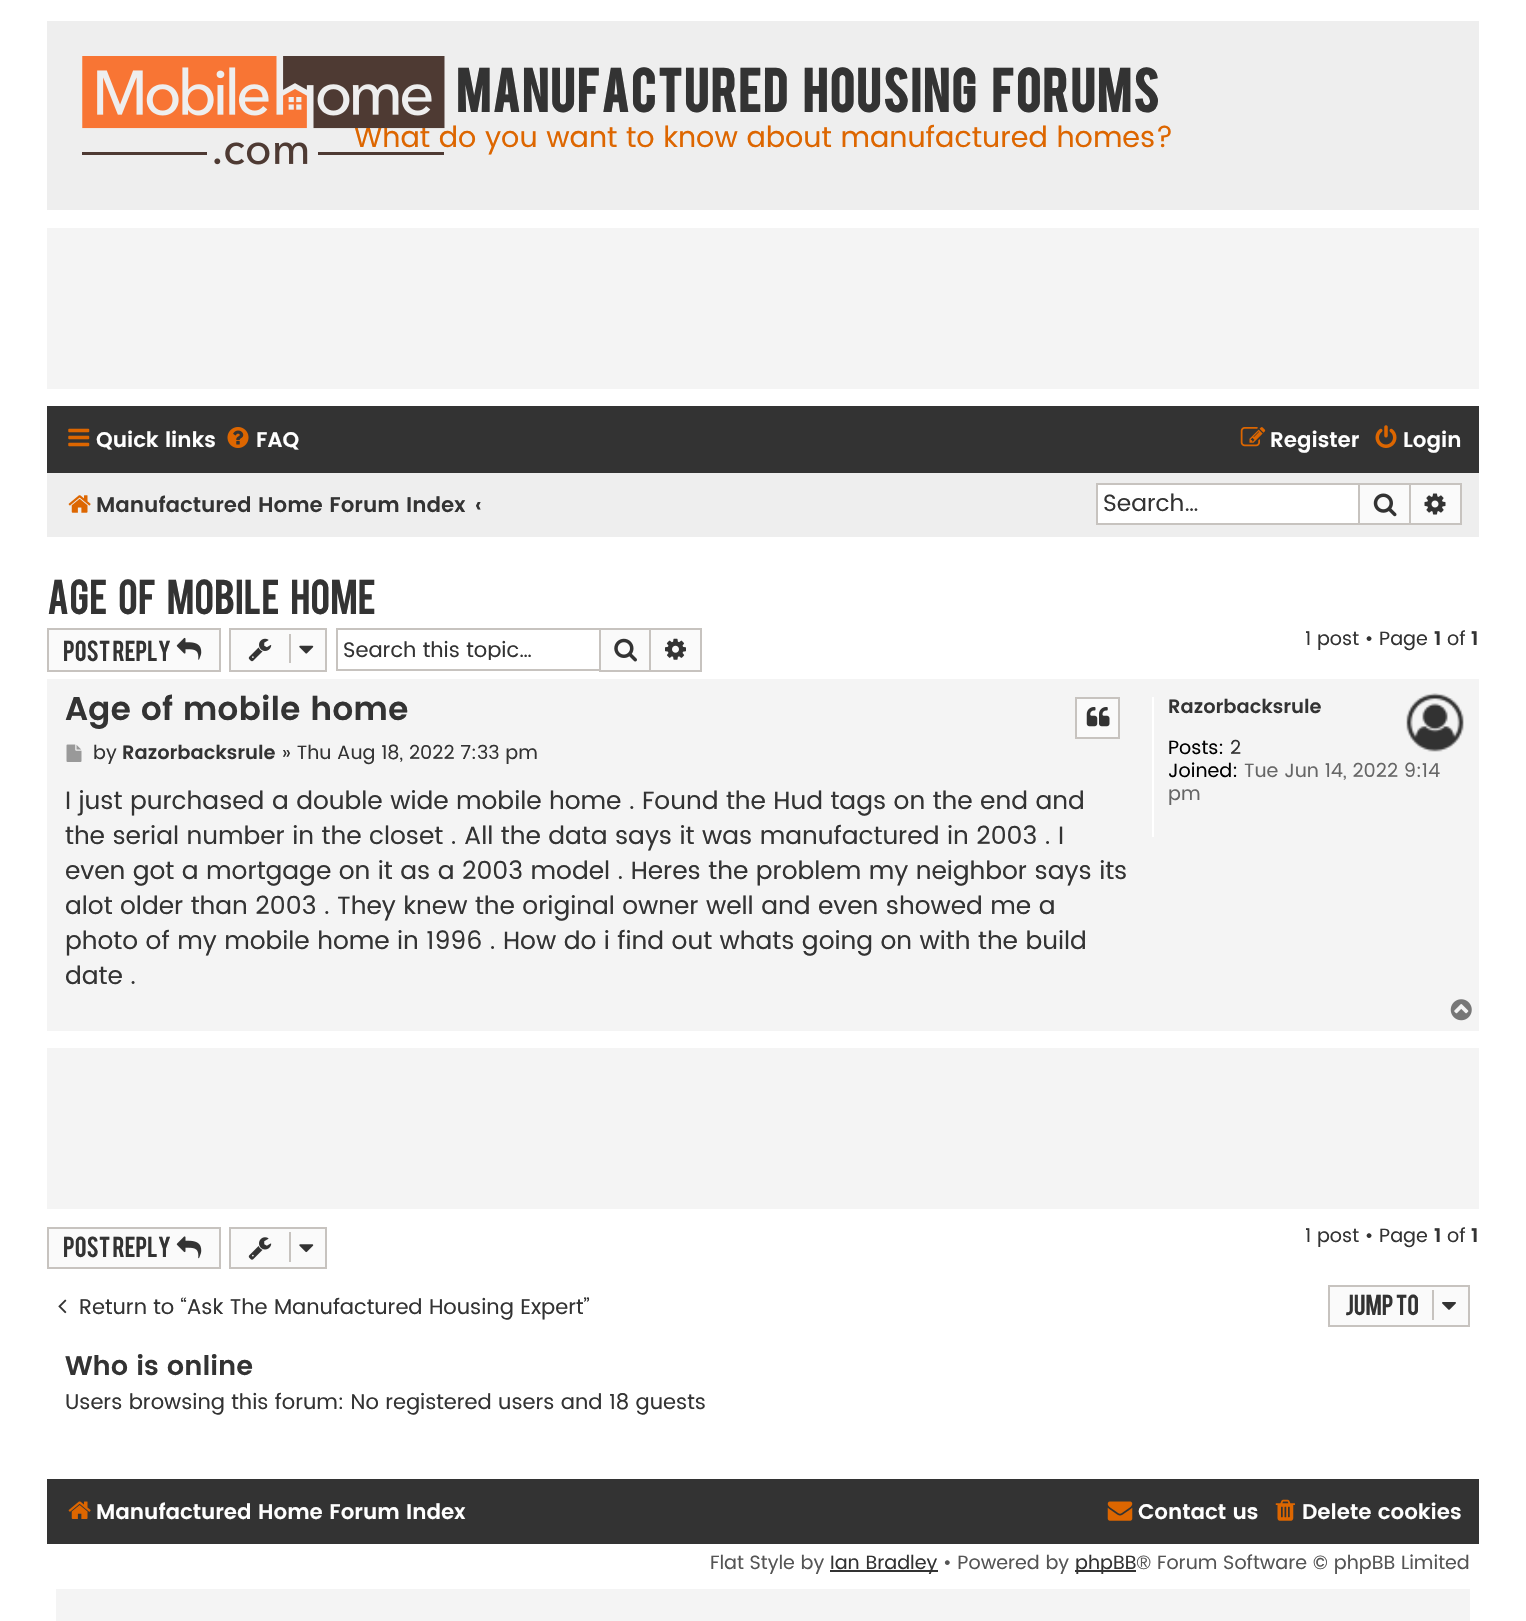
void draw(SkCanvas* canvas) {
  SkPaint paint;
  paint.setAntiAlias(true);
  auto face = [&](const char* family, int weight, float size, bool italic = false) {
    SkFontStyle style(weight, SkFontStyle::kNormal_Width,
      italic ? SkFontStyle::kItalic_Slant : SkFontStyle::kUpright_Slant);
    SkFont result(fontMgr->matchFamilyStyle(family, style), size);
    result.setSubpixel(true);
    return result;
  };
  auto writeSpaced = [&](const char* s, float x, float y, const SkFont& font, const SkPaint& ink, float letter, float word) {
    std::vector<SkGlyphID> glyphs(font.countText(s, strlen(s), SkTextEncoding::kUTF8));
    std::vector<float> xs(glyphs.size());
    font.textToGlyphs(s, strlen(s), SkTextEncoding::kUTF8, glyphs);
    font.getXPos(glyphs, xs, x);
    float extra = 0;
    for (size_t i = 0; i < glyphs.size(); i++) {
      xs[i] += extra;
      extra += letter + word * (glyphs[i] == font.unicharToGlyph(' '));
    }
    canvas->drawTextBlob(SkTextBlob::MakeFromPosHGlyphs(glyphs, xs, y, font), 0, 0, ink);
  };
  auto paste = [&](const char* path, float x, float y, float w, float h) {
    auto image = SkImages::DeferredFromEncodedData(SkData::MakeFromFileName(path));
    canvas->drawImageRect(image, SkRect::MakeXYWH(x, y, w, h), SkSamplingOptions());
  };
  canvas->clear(0xffffffff);
  {
    const struct { float x, y, w, h; SkColor color; } items[] = {
      {47, 21, 1432, 189, 0xffeeeeee},
      {47, 228, 1432, 161, 0xfff4f4f4},
      {47, 406, 1432, 67, 0xff333333},
    };
    for (auto [x, y, w, h, color] : items) {
      paint.setColor(color);
      canvas->drawRect(SkRect::MakeXYWH(x, y, w, h), paint);
    }
  }
  paste("img/2.png", 68, 428, 22, 19);
  paste("img/3.png", 227, 427, 22, 21);
  paste("img/4.png", 1240, 427, 26, 20);
  paste("img/5.png", 1375, 425, 22, 23);
  paint.setColor(0xffeeeeee);
  canvas->drawRect(SkRect::MakeXYWH(47, 473, 1432, 64), paint);
  paste("img/6.png", 68, 495, 23, 18);
  {
    const struct { float x, y, w, h; SkColor color; } items[] = {
      {1098, 485, 260, 38, 0xffffffff},
      {1096, 483, 262, 2, 0xffc7c3bf},
      {1096, 523, 262, 2, 0xffc7c3bf},
      {1096, 483, 2, 42, 0xffc7c3bf},
    };
    for (auto [x, y, w, h, color] : items) {
      paint.setColor(color);
      canvas->drawRect(SkRect::MakeXYWH(x, y, w, h), paint);
    }
  }
  paint.setColor(0xfffafafa);
  canvas->drawRect(SkRect::MakeXYWH(1359, 484, 51, 40), paint);
  paint.setStroke(true);
  paint.setStrokeWidth(2);
  paint.setColor(0xffc7c3bf);
  canvas->drawRect(SkRect::MakeXYWH(1359, 484, 51, 40), paint);
  paste("img/7.png", 1373, 493, 24, 24);
  paint.setStroke(false);
  {
    const struct { float x, y, w, h; SkColor color; } items[] = {
      {1411, 485, 49, 38, 0xfffafafa},
      {1411, 483, 50, 2, 0xffc7c3bf},
      {1460, 483, 2, 42, 0xffc7c3bf},
      {1411, 523, 50, 2, 0xffc7c3bf},
    };
    for (auto [x, y, w, h, color] : items) {
      paint.setColor(color);
      canvas->drawRect(SkRect::MakeXYWH(x, y, w, h), paint);
    }
  }
  paste("img/8.png", 1424, 493, 22, 22);
  paint.setColor(0xfffafafa);
  canvas->drawRect(SkRect::MakeXYWH(48, 629, 172, 42), paint);
  paint.setStroke(true);
  paint.setColor(0xffc7c3bf);
  canvas->drawRect(SkRect::MakeXYWH(48, 629, 172, 42), paint);
  paste("img/9.png", 176, 637, 26, 23);
  paint.setStroke(false);
  paint.setColor(0xfffafafa);
  canvas->drawRect(SkRect::MakeXYWH(230, 629, 96, 42), paint);
  paint.setStroke(true);
  paint.setColor(0xffc7c3bf);
  canvas->drawRect(SkRect::MakeXYWH(230, 629, 96, 42), paint);
  paste("img/10.png", 248, 638, 24, 24);
  paint.setStroke(false);
  canvas->drawRect(SkRect::MakeXYWH(289, 634, 2, 29), paint);
  paste("img/11.png", 299, 645, 15, 9);
  {
    const struct { float x, y, w, h; SkColor color; } items[] = {
      {336, 628, 263, 2, 0xffc7c3bf},
      {336, 669, 263, 2, 0xffc7c3bf},
      {336, 628, 2, 42, 0xffc7c3bf},
    };
    for (auto [x, y, w, h, color] : items) {
      paint.setColor(color);
      canvas->drawRect(SkRect::MakeXYWH(x, y, w, h), paint);
    }
  }
  paint.setColor(0xfffafafa);
  canvas->drawRect(SkRect::MakeXYWH(600, 629, 50, 42), paint);
  paint.setStroke(true);
  paint.setColor(0xffc7c3bf);
  canvas->drawRect(SkRect::MakeXYWH(600, 629, 50, 42), paint);
  paste("img/12.png", 614, 638, 23, 24);
  paint.setStroke(false);
  {
    const struct { float x, y, w, h; SkColor color; } items[] = {
      {651, 630, 49, 40, 0xfffafafa},
      {651, 628, 51, 2, 0xffc7c3bf},
      {700, 628, 2, 44, 0xffc7c3bf},
      {651, 670, 51, 2, 0xffc7c3bf},
    };
    for (auto [x, y, w, h, color] : items) {
      paint.setColor(color);
      canvas->drawRect(SkRect::MakeXYWH(x, y, w, h), paint);
    }
  }
  paste("img/13.png", 665, 638, 21, 22);
  paint.setColor(0xfff4f4f4);
  canvas->drawRect(SkRect::MakeXYWH(47, 679, 1432, 352), paint);
  paste("img/14.png", 1406, 693, 58, 59);
  paint.setColor(0xfffafafa);
  canvas->drawRect(SkRect::MakeXYWH(1076, 698, 43, 40), paint);
  paint.setStroke(true);
  paint.setColor(0xffc7c3bf);
  canvas->drawRect(SkRect::MakeXYWH(1076, 698, 43, 40), paint);
  paste("img/15.png", 1086, 707, 24, 20);
  paste("img/16.png", 66, 744, 16, 18);
  paint.setStroke(false);
  paint.setColor(0xffffffff);
  canvas->drawRect(SkRect::MakeXYWH(1152, 697, 2, 140), paint);
  paste("img/17.png", 1450, 999, 22, 22);
  paint.setColor(0xfff4f4f4);
  canvas->drawRect(SkRect::MakeXYWH(47, 1048, 1432, 161), paint);
  paint.setColor(0xfffafafa);
  canvas->drawRect(SkRect::MakeXYWH(48, 1228, 172, 40), paint);
  paint.setStroke(true);
  paint.setColor(0xffc7c3bf);
  canvas->drawRect(SkRect::MakeXYWH(48, 1228, 172, 40), paint);
  paste("img/18.png", 176, 1236, 26, 23);
  paint.setStroke(false);
  paint.setColor(0xfffafafa);
  canvas->drawRect(SkRect::MakeXYWH(230, 1228, 96, 40), paint);
  paint.setStroke(true);
  paint.setColor(0xffc7c3bf);
  canvas->drawRect(SkRect::MakeXYWH(230, 1228, 96, 40), paint);
  paste("img/19.png", 248, 1237, 24, 23);
  paint.setStroke(false);
  canvas->drawRect(SkRect::MakeXYWH(289, 1232, 2, 30), paint);
  paste("img/20.png", 299, 1244, 15, 9);
  paste("img/21.png", 58, 1299, 9, 15);
  paint.setColor(0xfffafafa);
  canvas->drawRect(SkRect::MakeXYWH(1329, 1286, 140, 40), paint);
  paint.setStroke(true);
  paint.setColor(0xffc7c3bf);
  canvas->drawRect(SkRect::MakeXYWH(1329, 1286, 140, 40), paint);
  paint.setStroke(false);
  canvas->drawRect(SkRect::MakeXYWH(1432, 1290, 2, 30), paint);
  paste("img/22.png", 1442, 1302, 14, 8);
  paint.setColor(0xff333333);
  canvas->drawRect(SkRect::MakeXYWH(47, 1479, 1432, 65), paint);
  paste("img/23.png", 68, 1501, 23, 18);
  paste("img/24.png", 1107, 1501, 26, 20);
  paste("img/25.png", 1275, 1499, 20, 22);
  {
    const struct { float x, y, w, h; SkColor color; } items[] = {
      {830, 1570, 108, 2, 0xff333333},
      {1075, 1570, 61, 2, 0xff333333},
      {56, 1589, 1414, 32, 0xfff4f4f4},
    };
    for (auto [x, y, w, h, color] : items) {
      paint.setColor(color);
      canvas->drawRect(SkRect::MakeXYWH(x, y, w, h), paint);
    }
  }
  auto f0 = face("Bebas", 700, 48.1f);
  paint.setColor(0xff333333);
  writeSpaced("Manufactured Housing Forums", 456, 112, f0, paint, 1.75f, 7);
  auto f1 = face("Poppins", 400, 28.9f);
  paint.setColor(0xffdd6600);
  canvas->drawString("What do you want to know about manufactured homes?", 354, 147, f1, paint);
  paste("img/1.png", 82, 56, 363, 109);
  auto f2 = face("Poppins", 600, 21.2f);
  paint.setColor(0xffffffff);
  {
    const struct { const char* s; float x, y; } items[] = {
      {"Quick links", 96, 447},
      {"FAQ", 256, 447},
      {"Register", 1270, 447},
      {"Login", 1403, 447},
    };
    for (auto [s, x, y] : items) {
      canvas->drawString(s, x, y, f2, paint);
    }
  }
  paint.setColor(0xff333333);
  canvas->drawString("Manufactured Home Forum Index", 96, 512, f2, paint);
  canvas->drawString("‹", 475, 512, f2, paint);
  auto f3 = face("Poppins", 400, 23.5f);
  canvas->drawString("Search…", 1103, 511, f3, paint);
  auto f4 = face("Bebas", 400, 38.5f);
  writeSpaced("Age of mobile home", 47, 614, f4, paint, 0, 7);
  auto f5 = face("Bebas", 400, 22.75f);
  canvas->drawString("Post Reply", 63, 661, f5, paint);
  canvas->save();
  canvas->clipRect(SkRect::MakeXYWH(343, 639, 243, 21));
  auto f6 = face("Poppins", 400, 21.2f);
  canvas->drawString("Search this topic…", 343, 657, f6, paint);
  canvas->restore();
  auto f7 = face("Poppins", 400, 19.25f);
  canvas->drawString("1 post • Page", 1305, 645, f7, paint);
  auto f8 = face("Poppins", 600, 19.25f);
  canvas->drawString("1", 1434, 645, f8, paint);
  canvas->drawString("of", 1447, 645, f7, paint);
  canvas->drawString("1", 1471, 645, f8, paint);
  auto f9 = face("Poppins", 600, 32.75f);
  canvas->drawString("Age of mobile home", 65, 720, f9, paint);
  canvas->drawString("by", 93, 759, f7, paint);
  canvas->drawString("Razorbacksrule", 122, 759, f8, paint);
  canvas->drawString("» Thu Aug 18, 2022 7:33 pm", 282, 759, f7, paint);
  auto f10 = face("Poppins", 400, 25.05f);
  {
    const struct { const char* s; float x, y; } items[] = {
      {"I just purchased a double wide mobile home . Found the Hud tags on the end and", 65, 809},
      {"the serial number in the closet . All the data says it was manufactured in 2003 . I", 65, 844},
      {"even got a mortgage on it as a 2003 model . Heres the problem my neighbor says its", 65, 879},
      {"alot older than 2003 . They knew the original owner well and even showed me a", 65, 914},
      {"photo of my mobile home in 1996 . How do i find out whats going on with the build", 65, 949},
      {"date .", 65, 984},
    };
    for (auto [s, x, y] : items) {
      canvas->drawString(s, x, y, f10, paint);
    }
  }
  canvas->drawString("Razorbacksrule", 1168, 713, f8, paint);
  paint.setColor(0xff000000);
  canvas->drawString("Posts:", 1168, 754, f7, paint);
  paint.setColor(0xff333333);
  canvas->drawString("2", 1230, 754, f7, paint);
  paint.setColor(0xff000000);
  canvas->drawString("Joined:", 1168, 777, f7, paint);
  paint.setColor(0xff666666);
  canvas->drawString("Tue Jun 14, 2022 9:14", 1244, 777, f7, paint);
  canvas->drawString("pm", 1168, 800, f7, paint);
  paint.setColor(0xff333333);
  canvas->drawString("Post Reply", 63, 1257, f5, paint);
  canvas->drawString("1 post • Page", 1305, 1242, f7, paint);
  canvas->drawString("1", 1434, 1242, f8, paint);
  canvas->drawString("of", 1447, 1242, f7, paint);
  canvas->drawString("1", 1471, 1242, f8, paint);
  canvas->drawString("Return to “Ask The Manufactured Housing Expert”", 79, 1314, f6, paint);
  canvas->drawString("Jump to", 1345, 1315, f5, paint);
  auto f11 = face("Poppins", 600, 27);
  canvas->drawString("Who is online", 65, 1375, f11, paint);
  canvas->drawString("Users browsing this forum: No registered users and 18 guests", 65, 1409, f6, paint);
  paint.setColor(0xffffffff);
  {
    const struct { const char* s; float x, y; } items[] = {
      {"Manufactured Home Forum Index", 96, 1519},
      {"Contact us", 1138, 1519},
      {"Delete cookies", 1302, 1519},
    };
    for (auto [s, x, y] : items) {
      canvas->drawString(s, x, y, f2, paint);
    }
  }
  paint.setColor(0xff555555);
  canvas->drawString("Flat Style by", 710, 1569, f7, paint);
  paint.setColor(0xff333333);
  canvas->drawString("Ian Bradley", 830, 1569, f7, paint);
  paint.setColor(0xff555555);
  canvas->drawString("• Powered by", 943, 1569, f7, paint);
  paint.setColor(0xff333333);
  canvas->drawString("phpBB", 1075, 1569, f7, paint);
  paint.setColor(0xff555555);
  canvas->drawString("® Forum Software © phpBB Limited", 1136, 1569, f7, paint);
}
